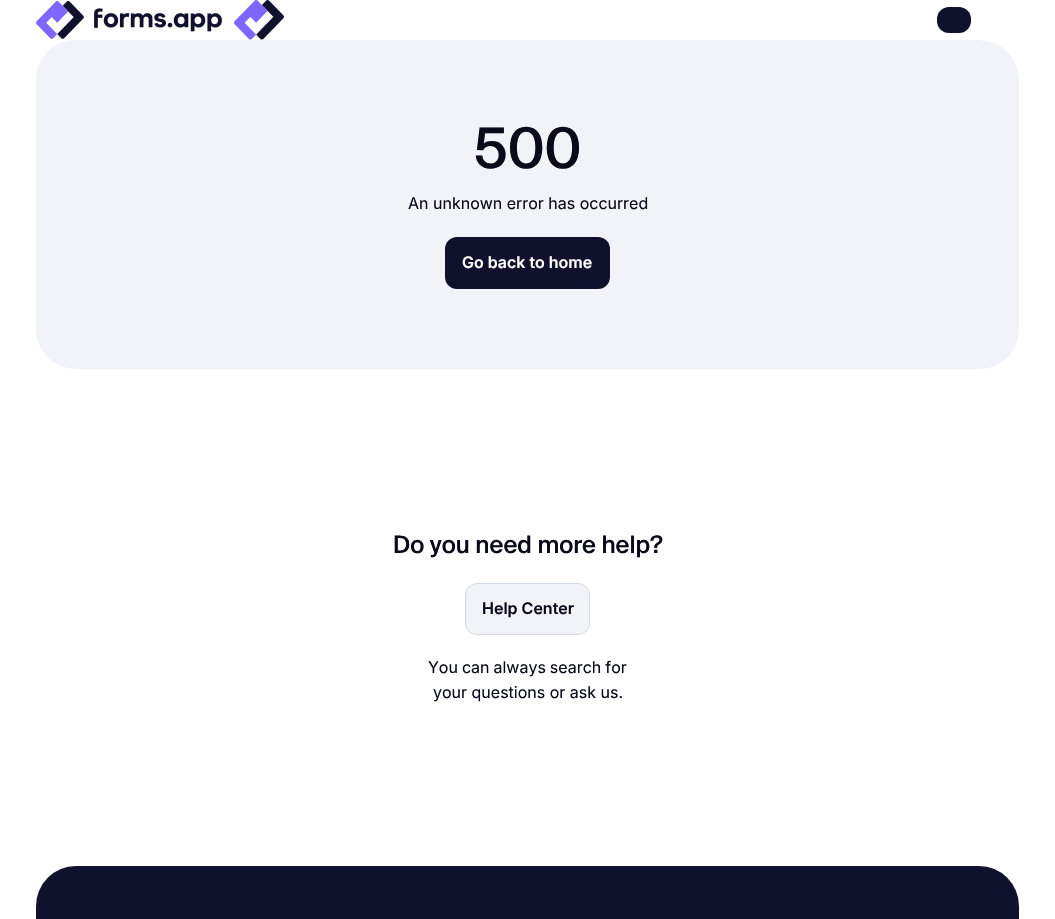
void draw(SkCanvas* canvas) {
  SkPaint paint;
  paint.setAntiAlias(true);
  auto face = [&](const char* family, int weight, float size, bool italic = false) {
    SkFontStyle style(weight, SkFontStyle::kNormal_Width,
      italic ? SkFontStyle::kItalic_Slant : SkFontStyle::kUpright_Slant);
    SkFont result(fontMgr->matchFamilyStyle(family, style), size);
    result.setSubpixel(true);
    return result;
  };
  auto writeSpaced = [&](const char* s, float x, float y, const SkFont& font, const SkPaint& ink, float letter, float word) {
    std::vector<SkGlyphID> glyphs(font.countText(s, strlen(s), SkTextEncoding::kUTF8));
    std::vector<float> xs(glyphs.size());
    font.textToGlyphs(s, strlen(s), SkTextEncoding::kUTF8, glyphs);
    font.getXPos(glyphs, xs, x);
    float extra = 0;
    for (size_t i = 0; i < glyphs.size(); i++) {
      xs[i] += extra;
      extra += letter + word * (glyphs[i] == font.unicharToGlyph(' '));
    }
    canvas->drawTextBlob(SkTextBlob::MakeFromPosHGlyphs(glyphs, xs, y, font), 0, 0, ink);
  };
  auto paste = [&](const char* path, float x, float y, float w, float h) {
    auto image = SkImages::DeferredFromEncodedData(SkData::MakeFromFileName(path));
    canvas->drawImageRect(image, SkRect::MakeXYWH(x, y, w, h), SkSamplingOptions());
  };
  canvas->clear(0xffffffff);
  paste("img/1.png", 36, 1, 186, 38);
  paste("img/2.png", 234, 0, 50, 40);
  paint.setColor(0xff10112d);
  canvas->drawRoundRect(SkRect::MakeXYWH(937, 7, 34, 26), 12, 12, paint);
  paint.setColor(0xfff1f3f9);
  canvas->drawRoundRect(SkRect::MakeXYWH(36, 40, 983, 329), 40, 40, paint);
  paint.setColor(0xff10112d);
  canvas->drawRoundRect(SkRect::MakeXYWH(445, 237, 165, 52), 12, 12, paint);
  paint.setColor(0xfff1f3f9);
  canvas->drawRoundRect(SkRect::MakeXYWH(465.5f, 583.5f, 124, 51), 11.5f, 11.5f, paint);
  paint.setStroke(true);
  paint.setStrokeWidth(1);
  paint.setColor(0xffd4d9e3);
  canvas->drawRoundRect(SkRect::MakeXYWH(465.5f, 583.5f, 124, 51), 11.5f, 11.5f, paint);
  paint.setStroke(false);
  paint.setColor(0xff10112d);
  canvas->drawRoundRect(SkRect::MakeXYWH(36, 866, 983, 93), 40, 40, paint);
  auto f0 = face("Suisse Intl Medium", 500, 56);
  paint.setColor(0xff090a1a);
  canvas->drawString("500", 474, 168, f0, paint);
  auto f1 = face("Inter", 400, 16);
  canvas->drawString("An unknown error has occurred", 408, 209, f1, paint);
  auto f2 = face("Inter", 600, 16);
  paint.setColor(0xffffffff);
  canvas->drawString("Go back to home", 462, 268, f2, paint);
  auto f3 = face("Suisse Intl Medium", 500, 24);
  paint.setColor(0xff090a1a);
  canvas->drawString("Do you need more help?", 393, 553, f3, paint);
  canvas->drawString("Help Center", 482, 614, f2, paint);
  writeSpaced("You can always search for", 428, 673, f1, paint, 0, -0.5f);
  canvas->drawString("your questions or ask us.", 433, 698, f1, paint);
}
